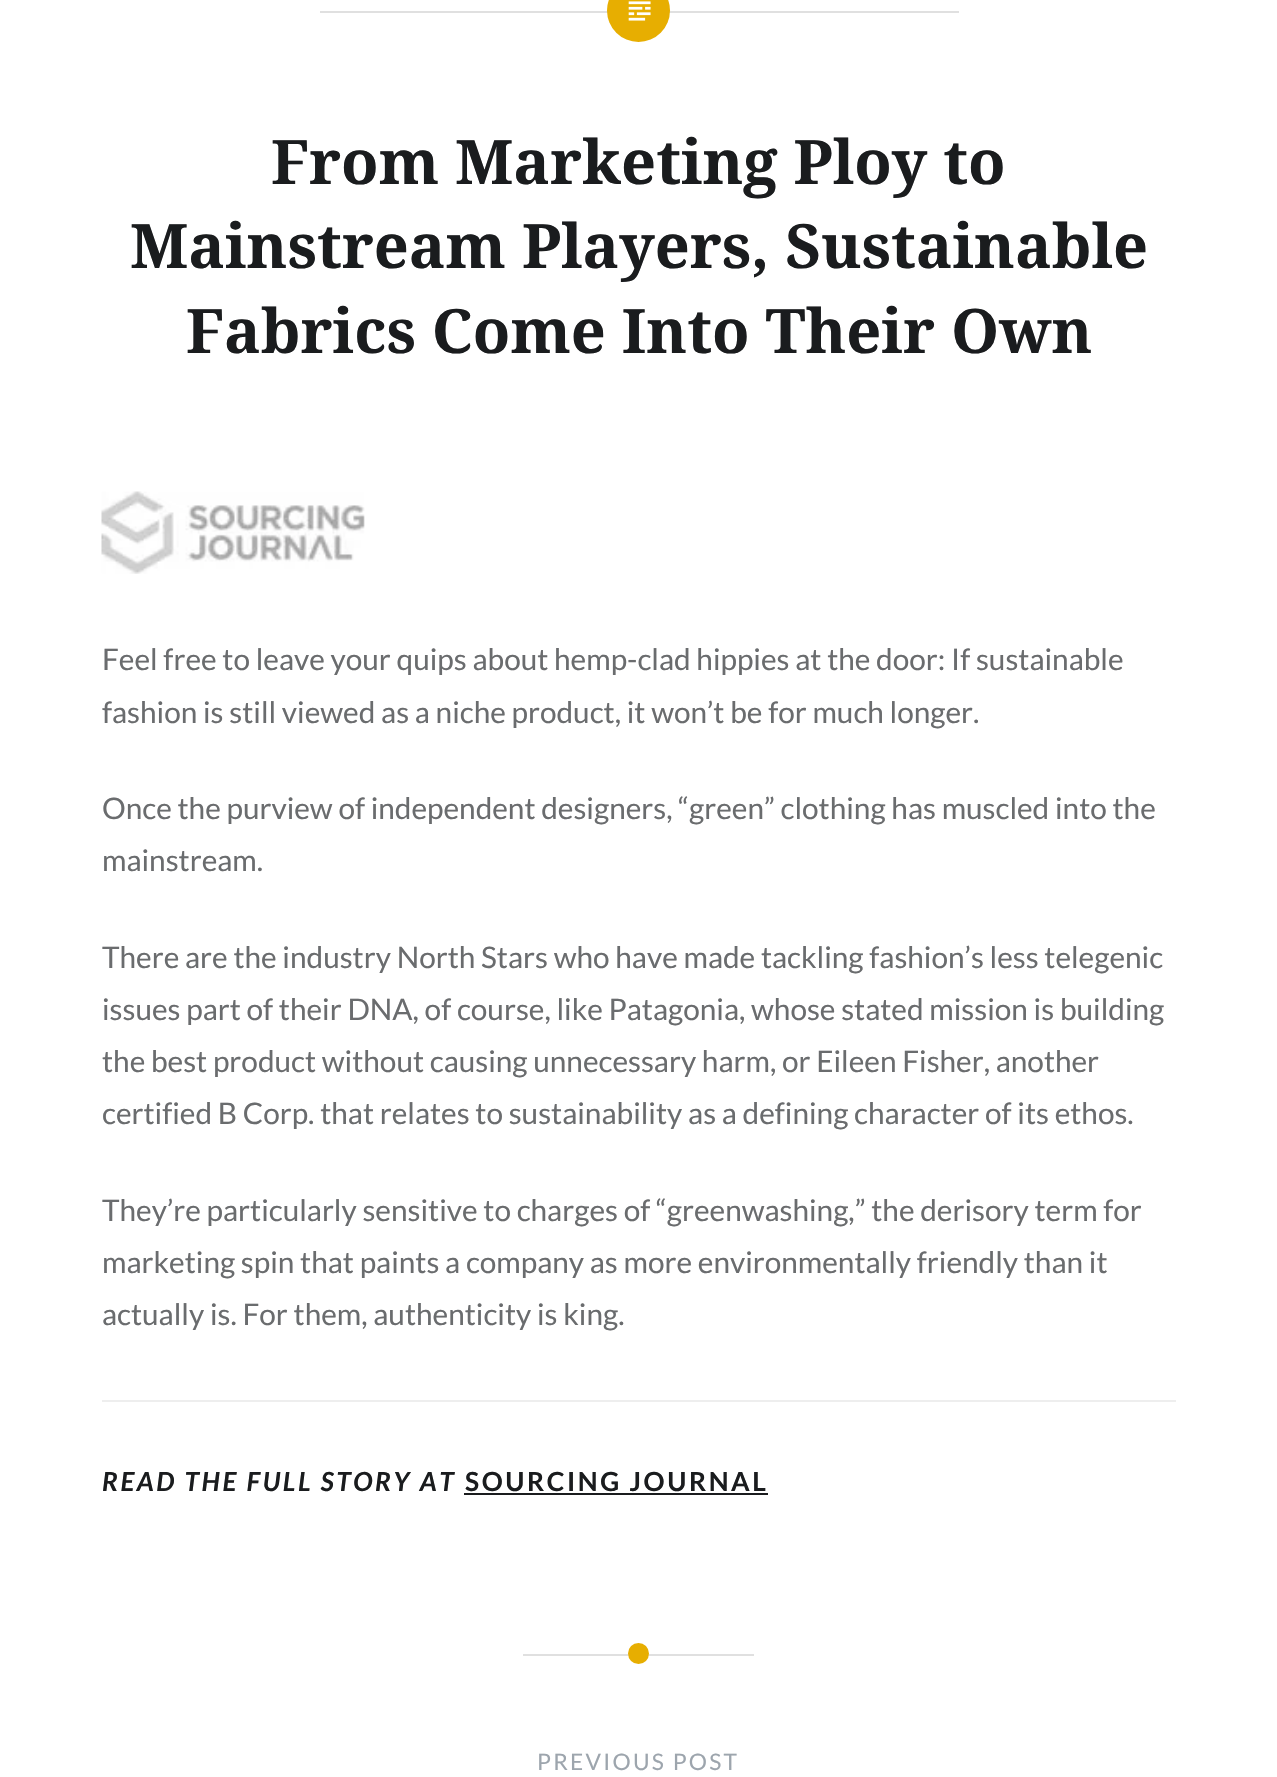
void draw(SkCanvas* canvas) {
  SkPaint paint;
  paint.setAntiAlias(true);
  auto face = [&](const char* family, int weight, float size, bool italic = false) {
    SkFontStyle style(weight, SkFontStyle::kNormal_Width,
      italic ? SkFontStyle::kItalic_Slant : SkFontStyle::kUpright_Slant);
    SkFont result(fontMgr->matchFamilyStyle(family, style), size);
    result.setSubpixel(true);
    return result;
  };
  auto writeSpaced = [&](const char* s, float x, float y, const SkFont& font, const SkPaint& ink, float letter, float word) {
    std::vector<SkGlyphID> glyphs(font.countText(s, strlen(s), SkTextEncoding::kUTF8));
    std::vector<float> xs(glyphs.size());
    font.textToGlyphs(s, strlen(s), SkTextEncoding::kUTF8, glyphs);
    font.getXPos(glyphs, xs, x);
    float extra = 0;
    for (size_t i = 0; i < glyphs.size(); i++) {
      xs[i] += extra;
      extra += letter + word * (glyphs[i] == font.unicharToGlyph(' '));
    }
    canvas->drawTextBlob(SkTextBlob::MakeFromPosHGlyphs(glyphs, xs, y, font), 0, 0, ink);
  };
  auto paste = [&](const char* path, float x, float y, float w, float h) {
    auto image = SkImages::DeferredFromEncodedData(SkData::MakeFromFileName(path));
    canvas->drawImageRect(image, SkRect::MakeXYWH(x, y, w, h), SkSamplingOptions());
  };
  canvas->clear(0xffffffff);
  paint.setColor(0xffe0e0e0);
  canvas->drawRect(SkRect::MakeXYWH(320, 11, 639, 2), paint);
  paint.setColor(0xffe7ae01);
  canvas->drawCircle(638.5f, 10.5f, 31.5f, paint);
  paste("img/1.png", 628, 1, 23, 20);
  paste("img/2.png", 101, 491, 264, 83);
  {
    const struct { float x, y, w, h; SkColor color; } items[] = {
      {102, 1400, 1074, 2, 0xffeeeeee},
      {464, 1493, 304, 2, 0xff1a1c1e},
      {523, 1654, 231, 2, 0xffe0e0e0},
    };
    for (auto [x, y, w, h, color] : items) {
      paint.setColor(color);
      canvas->drawRect(SkRect::MakeXYWH(x, y, w, h), paint);
    }
  }
  paint.setColor(0xffe7ae01);
  canvas->drawCircle(638.5f, 1653.5f, 10.5f, paint);
  auto f0 = face("Noto Serif", 700, 61.25f);
  paint.setColor(0xff1a1c1e);
  {
    const struct { const char* s; float x, y; } items[] = {
      {"From Marketing Ploy to", 271, 184},
      {"Mainstream Players, Sustainable", 130, 268},
      {"Fabrics Come Into Their Own", 186, 353},
    };
    for (auto [s, x, y] : items) {
      canvas->drawString(s, x, y, f0, paint);
    }
  }
  auto f1 = face("Lato", 400, 29.75f);
  paint.setColor(0xff6a6c6e);
  {
    const struct { const char* s; float x, y; } items[] = {
      {"Feel free to leave your quips about hemp-clad hippies at the door: If sustainable", 102, 670},
      {"fashion is still viewed as a niche product, it won’t be for much longer.", 102, 723},
      {"Once the purview of independent designers, “green” clothing has muscled into the", 102, 819},
      {"mainstream.", 102, 871},
      {"There are the industry North Stars who have made tackling fashion’s less telegenic", 102, 968},
      {"issues part of their DNA, of course, like Patagonia, whose stated mission is building", 102, 1020},
      {"the best product without causing unnecessary harm, or Eileen Fisher, another", 102, 1072},
      {"certified B Corp. that relates to sustainability as a defining character of its ethos.", 102, 1124},
      {"They’re particularly sensitive to charges of “greenwashing,” the derisory term for", 102, 1221},
      {"marketing spin that paints a company as more environmentally friendly than it", 102, 1273},
      {"actually is. For them, authenticity is king.", 102, 1325},
    };
    for (auto [s, x, y] : items) {
      canvas->drawString(s, x, y, f1, paint);
    }
  }
  auto f2 = face("Lato", 700, 26.25f, true);
  paint.setColor(0xff1a1c1e);
  writeSpaced("READ THE FULL STORY AT", 102, 1491, f2, paint, 2.6f, 0);
  auto f3 = face("Lato", 700, 26.25f);
  writeSpaced("SOURCING JOURNAL", 465, 1491, f3, paint, 2.6f, 0);
  auto f4 = face("Lato", 400, 22.75f);
  paint.setColor(0xff9da5ad);
  writeSpaced("PREVIOUS POST", 537, 1770, f4, paint, 2.25f, 0);
}
